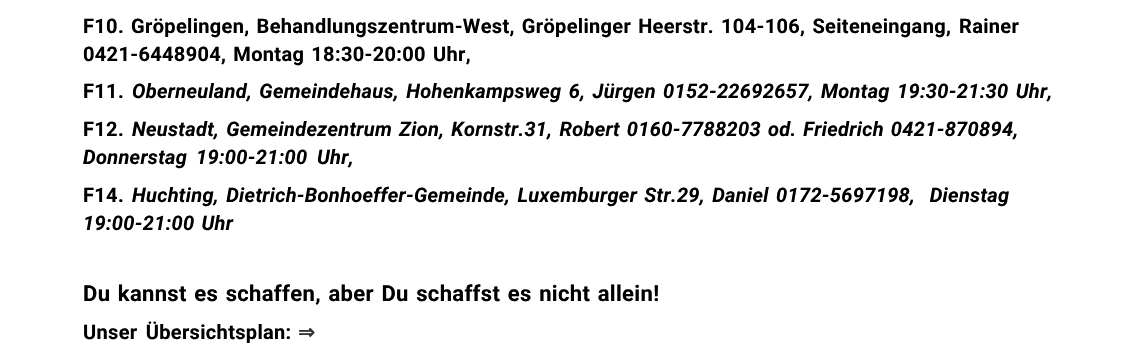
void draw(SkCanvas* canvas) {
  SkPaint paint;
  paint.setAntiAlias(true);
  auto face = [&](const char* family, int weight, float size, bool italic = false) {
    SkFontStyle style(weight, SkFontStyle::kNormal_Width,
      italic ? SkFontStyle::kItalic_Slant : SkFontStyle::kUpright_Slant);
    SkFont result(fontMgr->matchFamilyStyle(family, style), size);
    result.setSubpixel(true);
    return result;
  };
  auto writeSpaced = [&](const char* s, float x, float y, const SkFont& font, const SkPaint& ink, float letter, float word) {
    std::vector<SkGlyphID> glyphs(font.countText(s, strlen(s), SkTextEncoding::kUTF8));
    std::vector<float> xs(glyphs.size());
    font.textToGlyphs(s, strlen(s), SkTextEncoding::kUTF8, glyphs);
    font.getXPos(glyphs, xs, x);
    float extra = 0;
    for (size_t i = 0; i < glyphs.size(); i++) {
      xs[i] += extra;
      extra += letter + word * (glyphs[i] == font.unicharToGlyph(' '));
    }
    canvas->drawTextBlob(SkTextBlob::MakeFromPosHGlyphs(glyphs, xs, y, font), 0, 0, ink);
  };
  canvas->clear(0xffffffff);
  auto f0 = face("Roboto", 700, 20);
  paint.setColor(0xff000000);
  writeSpaced("F10. Gröpelingen, Behandlungszentrum-West, Gröpelinger Heerstr. 104-106, Seiteneingang,", 83, 33, f0, paint, 0.33f, 1.75f);
  writeSpaced("Rainer", 959, 33, f0, paint, 0.33f, 0);
  writeSpaced("0421-6448904, Montag 18:30-20:00 Uhr,", 83, 61, f0, paint, 0.33f, 1.75f);
  writeSpaced("F11.", 83, 98, f0, paint, 0.33f, 0);
  auto f1 = face("Roboto", 700, 20, true);
  writeSpaced("Oberneuland, Gemeindehaus, Hohenkampsweg 6, Jürgen 0152-22692657, Montag 19:30-21:30 Uhr,", 132, 98, f1, paint, 0.33f, 2);
  writeSpaced("F12.", 83, 136, f0, paint, 0.33f, 0);
  writeSpaced("Neustadt, Gemeindezentrum Zion, Kornstr.31, Robert 0160-7788203 od. Friedrich 0421-870894,", 132, 136, f1, paint, 0.33f, 1.75f);
  writeSpaced("Donnerstag", 83, 164, f1, paint, 0.33f, 0);
  writeSpaced("19:00-21:00", 196, 164, f1, paint, 0.33f, 0);
  writeSpaced("Uhr,", 317, 164, f1, paint, 0.33f, 0);
  writeSpaced("F14.", 83, 202, f0, paint, 0.33f, 0);
  writeSpaced("Huchting, Dietrich-Bonhoeffer-Gemeinde, Luxemburger Str.29, Daniel 0172-5697198,  Dienstag", 132, 202, f1, paint, 0.33f, 2);
  writeSpaced("19:00-21:00 Uhr", 83, 230, f1, paint, 0.33f, 1.75f);
  auto f2 = face("Roboto", 700, 22);
  writeSpaced("Du kannst es schaffen, aber Du schaffst es nicht allein!", 83, 301, f2, paint, 0.33f, 1.75f);
  writeSpaced("Unser Übersichtsplan:", 83, 339, f0, paint, 0.33f, 3);
  auto f3 = face("DejaVu Sans", 700, 20);
  paint.setColor(0xff333333);
  writeSpaced("⇒", 298, 339, f3, paint, 0.33f, 0);
}
